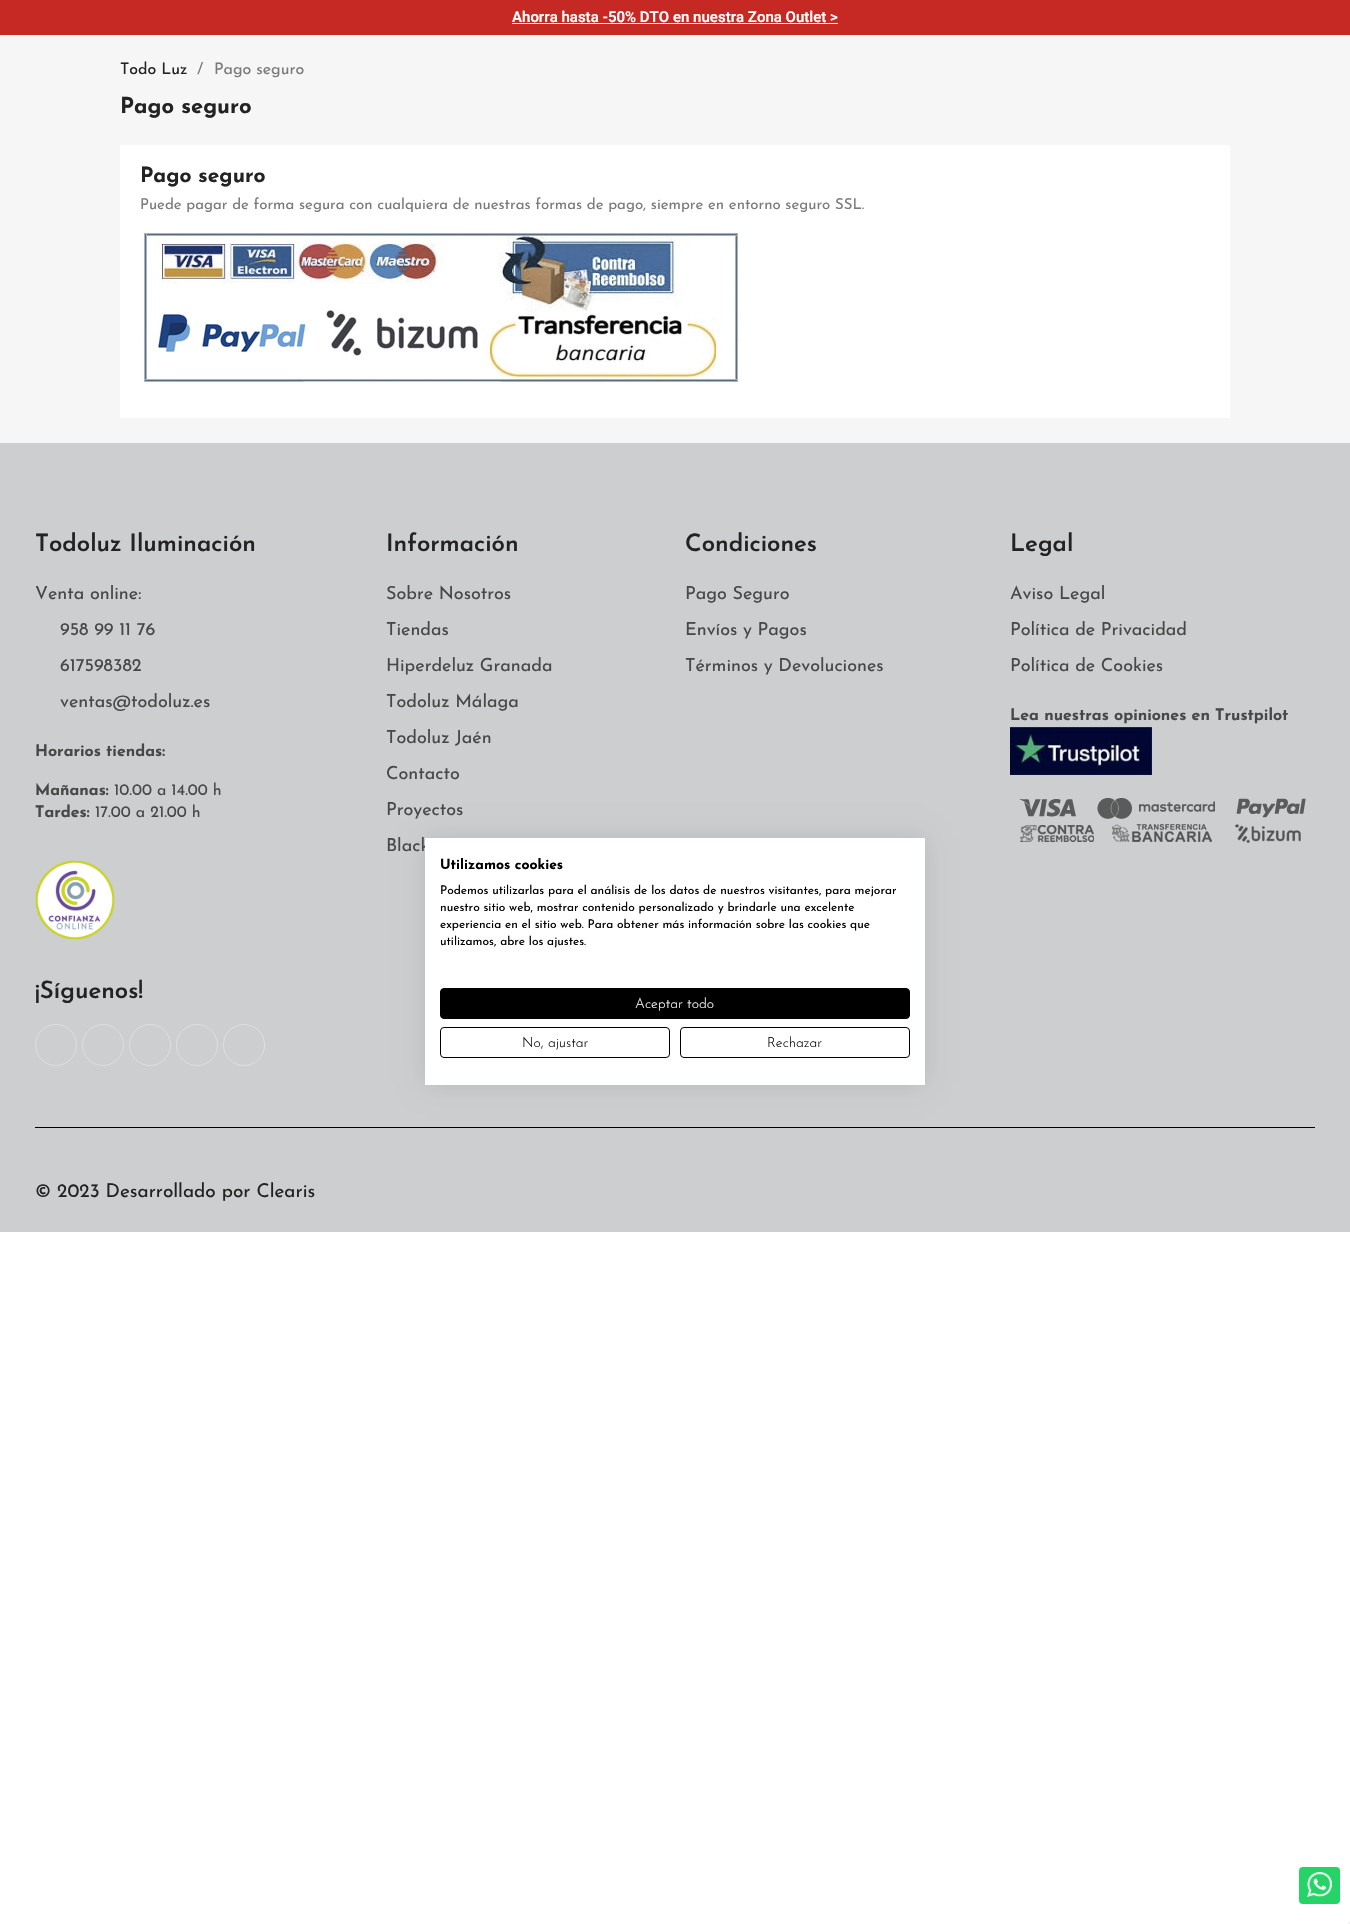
void draw(SkCanvas* canvas) {
  SkPaint paint;
  paint.setAntiAlias(true);
  auto face = [&](const char* family, int weight, float size, bool italic = false) {
    SkFontStyle style(weight, SkFontStyle::kNormal_Width,
      italic ? SkFontStyle::kItalic_Slant : SkFontStyle::kUpright_Slant);
    SkFont result(fontMgr->matchFamilyStyle(family, style), size);
    result.setSubpixel(true);
    return result;
  };
  auto paste = [&](const char* path, float x, float y, float w, float h) {
    auto image = SkImages::DeferredFromEncodedData(SkData::MakeFromFileName(path));
    canvas->drawImageRect(image, SkRect::MakeXYWH(x, y, w, h), SkSamplingOptions());
  };
  canvas->clear(0xffffffff);
  {
    const struct { float x, y, w, h; SkColor color; } items[] = {
      {0, 0, 1350, 35, 0xffc62823},
      {512, 23, 326, 1, 0xffffffff},
      {0, 35, 1350, 408, 0xfff6f6f6},
      {120, 145, 1110, 273, 0xffffffff},
    };
    for (auto [x, y, w, h, color] : items) {
      paint.setColor(color);
      canvas->drawRect(SkRect::MakeXYWH(x, y, w, h), paint);
    }
  }
  paste("img/1.png", 141, 232, 599, 150);
  paint.setColor(0xffcccecf);
  canvas->drawRect(SkRect::MakeXYWH(0, 443, 1350, 789), paint);
  paste("img/2.png", 35, 860, 80, 80);
  paint.setStroke(true);
  paint.setStrokeWidth(1);
  paint.setColor(0xffdfdfdf);
  canvas->drawCircle(56, 1045, 20.5f, paint);
  canvas->drawCircle(103, 1045, 20.5f, paint);
  canvas->drawCircle(150, 1045, 20.5f, paint);
  canvas->drawCircle(197, 1045, 20.5f, paint);
  canvas->drawCircle(244, 1045, 20.5f, paint);
  paste("img/3.png", 1010, 727, 142, 48);
  paste("img/4.png", 1019, 798, 287, 45);
  paint.setStroke(false);
  paint.setColor(0xff000000);
  canvas->drawRect(SkRect::MakeXYWH(35, 1127, 1280, 1), paint);
  paint.setColor(0x1a000000);
  paint.setMaskFilter(SkMaskFilter::MakeBlur(kNormal_SkBlurStyle, 12));
  canvas->drawRect(SkRect::MakeXYWH(425, 838, 500, 247), paint);
  paint.setMaskFilter(nullptr);
  paint.setColor(0xff25d366);
  canvas->drawRoundRect(SkRect::MakeXYWH(1299, 1867, 41, 37), 4, 4, paint);
  paste("img/5.png", 1307, 1872, 25, 25);
  paint.setColor(0xfff5f5f5);
  canvas->drawRect(SkRect::MakeXYWH(1348, 1922, 2, 2), paint);
  auto f0 = face("Roboto", 600, 15);
  paint.setColor(0xffffffff);
  canvas->drawString("Ahorra hasta -50% DTO en nuestra Zona Outlet >", 512, 22, f0, paint);
  auto f1 = face("Josefin Sans", 400, 16);
  paint.setColor(0xff232323);
  canvas->drawString("Todo Luz", 120, 74, f1, paint);
  paint.setColor(0xff7a7a7a);
  canvas->drawString("/", 197, 74, f1, paint);
  canvas->drawString("Pago seguro", 214, 74, f1, paint);
  auto f2 = face("Josefin Sans", 700, 22);
  paint.setColor(0xff232323);
  canvas->drawString("Pago seguro", 120, 113, f2, paint);
  auto f3 = face("Josefin Sans", 700, 21);
  canvas->drawString("Pago seguro", 140, 182, f3, paint);
  auto f4 = face("Josefin Sans", 400, 15);
  paint.setColor(0xff7a7a7a);
  canvas->drawString("Puede pagar de forma segura con cualquiera de nuestras formas de pago, siempre en entorno seguro SSL.", 140, 209, f4, paint);
  auto f5 = face("Josefin Sans", 600, 24);
  paint.setColor(0xff232323);
  canvas->drawString("Todoluz Iluminación", 35, 551, f5, paint);
  auto f6 = face("Josefin Sans", 400, 18);
  paint.setColor(0xff484848);
  {
    const struct { const char* s; float x, y; } items[] = {
      {"Venta online:", 35, 599},
      {"958 99 11 76", 60, 635},
      {"617598382", 60, 671},
      {"ventas@todoluz.es", 60, 707},
    };
    for (auto [s, x, y] : items) {
      canvas->drawString(s, x, y, f6, paint);
    }
  }
  auto f7 = face("Josefin Sans", 700, 16);
  canvas->drawString("Horarios tiendas:", 35, 756, f7, paint);
  canvas->drawString("Mañanas:", 35, 795, f7, paint);
  canvas->drawString("10.00 a 14.00 h", 114, 795, f1, paint);
  canvas->drawString("Tardes:", 35, 817, f7, paint);
  canvas->drawString("17.00 a 21.00 h", 95, 817, f1, paint);
  paint.setColor(0xff232323);
  canvas->drawString("¡Síguenos!", 35, 998, f5, paint);
  canvas->drawString("Información", 386, 551, f5, paint);
  paint.setColor(0xff484848);
  {
    const struct { const char* s; float x, y; } items[] = {
      {"Sobre Nosotros", 386, 599},
      {"Tiendas", 386, 635},
      {"Hiperdeluz Granada", 386, 671},
      {"Todoluz Málaga", 386, 707},
      {"Todoluz Jaén", 386, 743},
      {"Contacto", 386, 779},
      {"Proyectos", 386, 815},
      {"Black", 386, 851},
    };
    for (auto [s, x, y] : items) {
      canvas->drawString(s, x, y, f6, paint);
    }
  }
  paint.setColor(0xff232323);
  canvas->drawString("Condiciones", 685, 551, f5, paint);
  paint.setColor(0xff484848);
  {
    const struct { const char* s; float x, y; } items[] = {
      {"Pago Seguro", 685, 599},
      {"Envíos y Pagos", 685, 635},
      {"Términos y Devoluciones", 685, 671},
    };
    for (auto [s, x, y] : items) {
      canvas->drawString(s, x, y, f6, paint);
    }
  }
  paint.setColor(0xff232323);
  canvas->drawString("Legal", 1010, 551, f5, paint);
  paint.setColor(0xff484848);
  {
    const struct { const char* s; float x, y; } items[] = {
      {"Aviso Legal", 1010, 599},
      {"Política de Privacidad", 1010, 635},
      {"Política de Cookies", 1010, 671},
    };
    for (auto [s, x, y] : items) {
      canvas->drawString(s, x, y, f6, paint);
    }
  }
  canvas->drawString("Lea nuestras opiniones en Trustpilot", 1010, 720, f7, paint);
  auto f8 = face("Josefin Sans", 400, 19);
  paint.setColor(0xff232323);
  canvas->drawString("© 2023 Desarrollado por Clearis", 35, 1197, f8, paint);
  paint.setColor(0xffffffff);
  canvas->drawRect(SkRect::MakeXYWH(425, 838, 500, 247), paint);
  auto f9 = face("Josefin Sans", 700, 14);
  paint.setColor(0xff000000);
  canvas->drawString("Utilizamos cookies", 440, 869, f9, paint);
  auto f10 = face("Josefin Sans", 400, 12);
  {
    const struct { const char* s; float x, y; } items[] = {
      {"Podemos utilizarlas para el análisis de los datos de nuestros visitantes, para mejorar", 440, 894},
      {"nuestro sitio web, mostrar contenido personalizado y brindarle una excelente", 440, 911},
      {"experiencia en el sitio web. Para obtener más información sobre las cookies que", 440, 928},
      {"utilizamos, abre los ajustes.", 440, 945},
    };
    for (auto [s, x, y] : items) {
      canvas->drawString(s, x, y, f10, paint);
    }
  }
  canvas->drawRoundRect(SkRect::MakeXYWH(440.5f, 988.5f, 469, 30), 3.5f, 3.5f, paint);
  paint.setStroke(true);
  canvas->drawRoundRect(SkRect::MakeXYWH(440.5f, 988.5f, 469, 30), 3.5f, 3.5f, paint);
  auto f11 = face("Josefin Sans", 300, 14);
  paint.setStroke(false);
  paint.setColor(0xffffffff);
  canvas->drawString("Aceptar todo", 635, 1008, f11, paint);
  paint.setStroke(true);
  paint.setColor(0xff000000);
  canvas->drawRoundRect(SkRect::MakeXYWH(440.5f, 1027.5f, 229, 30), 3.5f, 3.5f, paint);
  paint.setStroke(false);
  canvas->drawString("No, ajustar", 522, 1047, f11, paint);
  paint.setStroke(true);
  canvas->drawRoundRect(SkRect::MakeXYWH(680.5f, 1027.5f, 229, 30), 3.5f, 3.5f, paint);
  paint.setStroke(false);
  canvas->drawString("Rechazar", 767, 1047, f11, paint);
}
